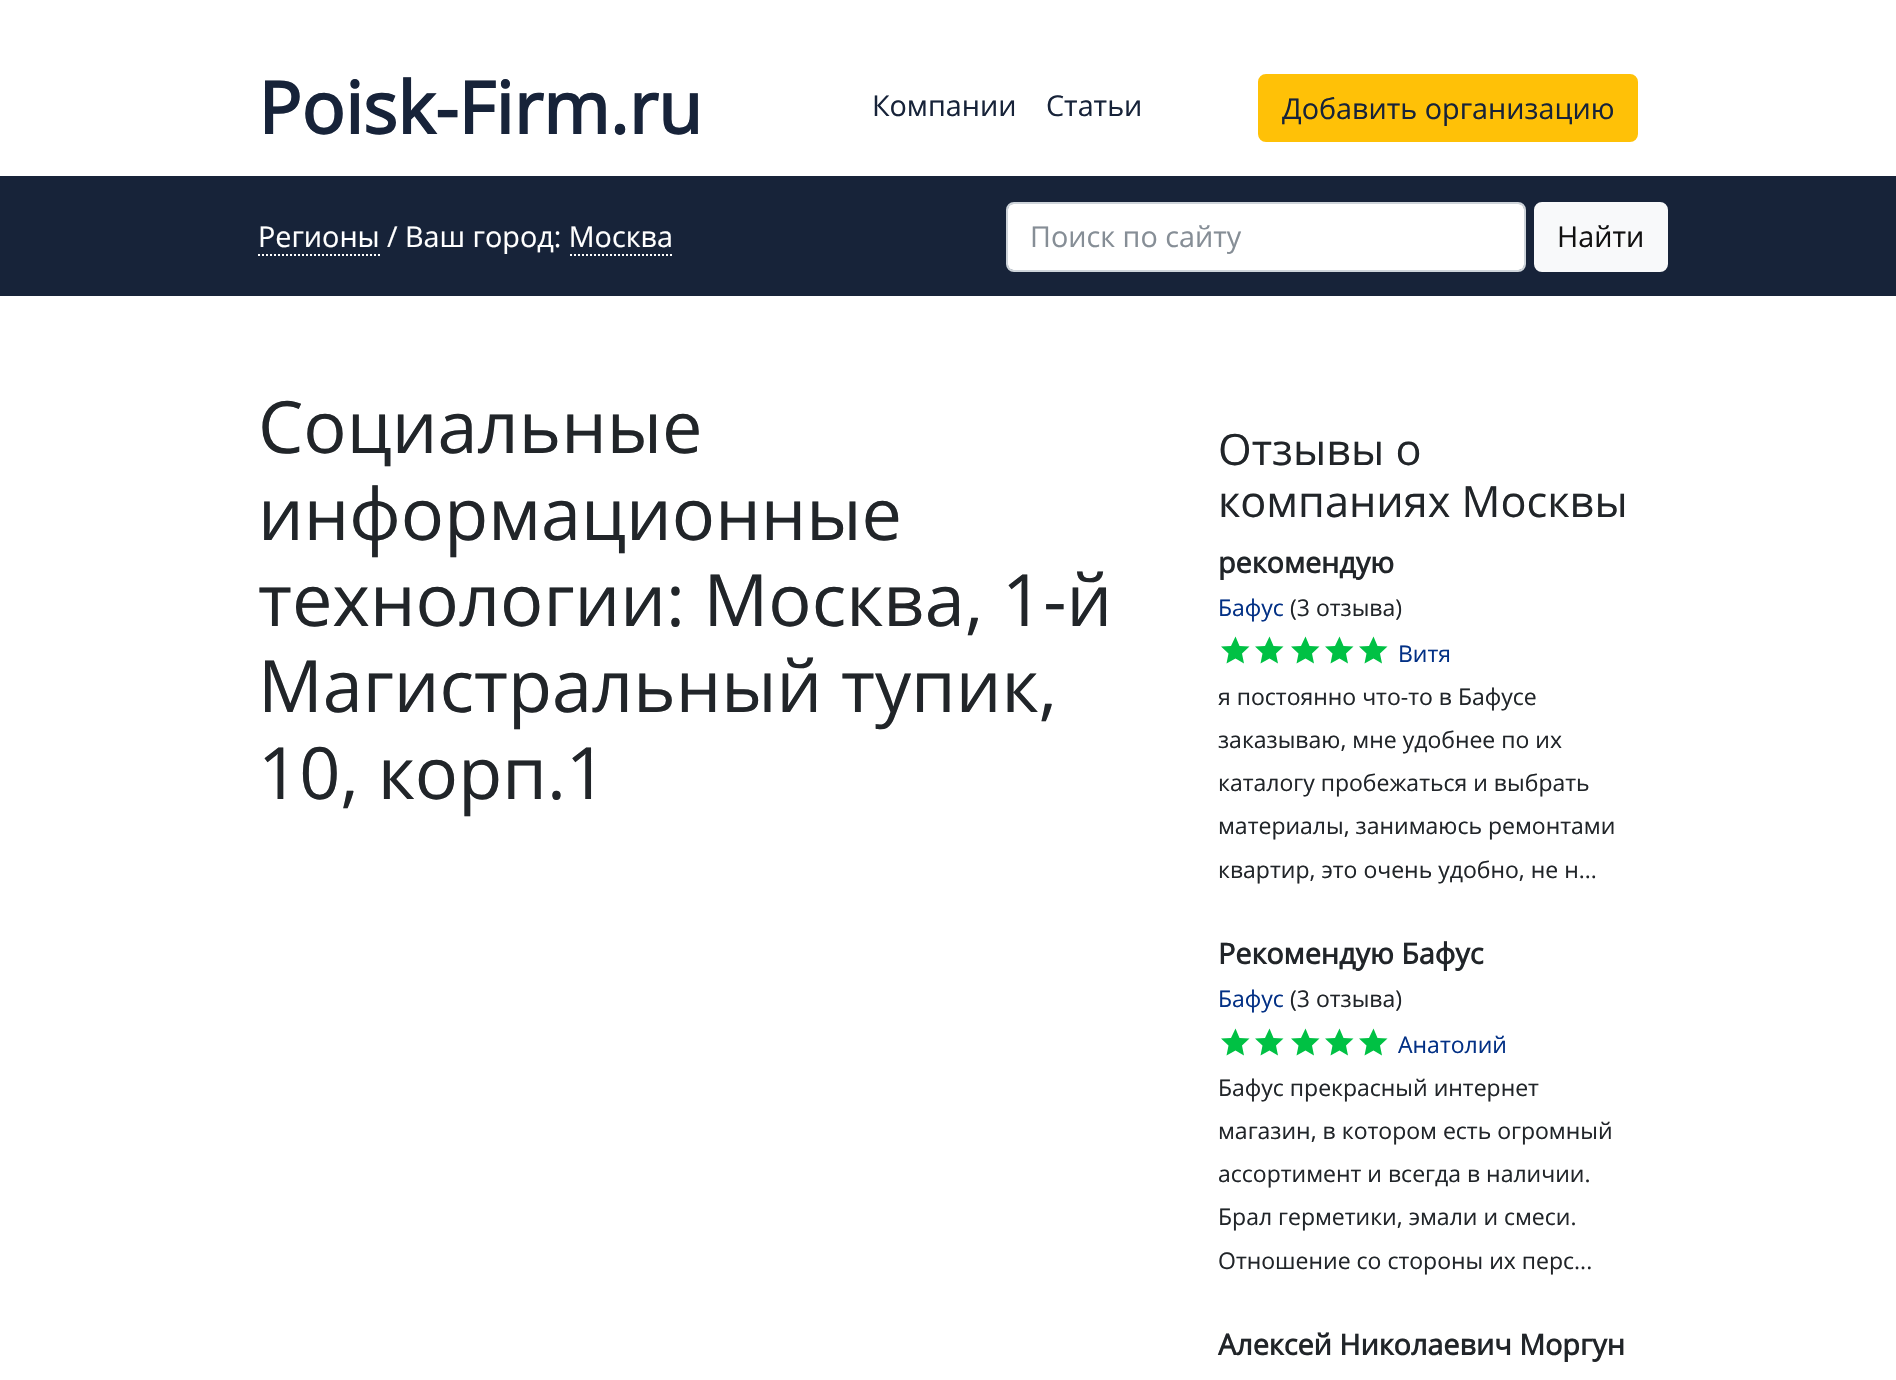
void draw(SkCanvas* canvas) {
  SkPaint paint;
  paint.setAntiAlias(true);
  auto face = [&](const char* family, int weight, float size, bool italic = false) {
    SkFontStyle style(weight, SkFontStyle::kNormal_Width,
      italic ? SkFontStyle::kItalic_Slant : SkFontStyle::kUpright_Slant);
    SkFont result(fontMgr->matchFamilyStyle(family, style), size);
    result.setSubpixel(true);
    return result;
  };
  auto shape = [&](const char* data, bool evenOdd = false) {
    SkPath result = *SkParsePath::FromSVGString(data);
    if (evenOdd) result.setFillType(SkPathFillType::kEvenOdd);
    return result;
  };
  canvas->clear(0xffffffff);
  paint.setColor(0xffffc107);
  canvas->drawRoundRect(SkRect::MakeXYWH(1259, 75, 378, 66), 7, 7, paint);
  paint.setStroke(true);
  paint.setStrokeWidth(2);
  canvas->drawRoundRect(SkRect::MakeXYWH(1259, 75, 378, 66), 7, 7, paint);
  paint.setStroke(false);
  paint.setColor(0xff172339);
  canvas->drawRect(SkRect::MakeXYWH(0, 176, 1896, 120), paint);
  paint.setStroke(true);
  paint.setColor(0xffffffff);
  paint.setPathEffect(SkDashPathEffect::Make({{2, 2}}, 0));
  canvas->drawPath(shape("M258 255H380"), paint);
  paint.setPathEffect(nullptr);
  paint.setPathEffect(SkDashPathEffect::Make({{2, 2}}, 0));
  canvas->drawPath(shape("M570 255H674"), paint);
  paint.setPathEffect(nullptr);
  paint.setStroke(false);
  canvas->drawRoundRect(SkRect::MakeXYWH(1008, 204, 516, 66), 5, 5, paint);
  paint.setStroke(true);
  paint.setColor(0xffced4da);
  canvas->drawRoundRect(SkRect::MakeXYWH(1007, 203, 518, 68), 7, 7, paint);
  paint.setStroke(false);
  paint.setColor(0xfff8f9fa);
  canvas->drawRoundRect(SkRect::MakeXYWH(1535, 203, 132, 68), 7, 7, paint);
  paint.setStroke(true);
  canvas->drawRoundRect(SkRect::MakeXYWH(1535, 203, 132, 68), 7, 7, paint);
  paint.setStroke(false);
  paint.setColor(0xff00c144);
  canvas->drawPath(shape("M1269.5 658.5L1260.5 663.5L1262.5 653.5L1255 646.5L1265 646L1269.5 636.5L1273.5 646L1283.5 646.5L1276 653.5L1278 663.5ZM1235.5 658.5L1226.5 663.5L1228.5 653.5L1221 646.5L1231 646L1235.5 636.5L1239.5 646L1249.5 646.5L1242 653.5L1244 663.5Z"), paint);
  canvas->drawPath(shape("M1305.5 658.5L1296.5 663.5L1298.5 653.5L1291 646.5L1301 646L1305.5 636.5L1309.5 646L1319.5 646.5L1312 653.5L1314 663.5Z"), paint);
  canvas->drawPath(shape("M1373.5 658.5L1364.5 663.5L1366.5 653.5L1359 646.5L1369 646L1373.5 636.5L1377.5 646L1387.5 646.5L1380 653.5L1382 663.5ZM1339.5 658.5L1330.5 663.5L1332.5 653.5L1325 646.5L1335 646L1339.5 636.5L1343.5 646L1353.5 646.5L1346 653.5L1348 663.5Z"), paint);
  canvas->drawPath(shape("M1269.5 1050.5L1260.5 1055.5L1262.5 1045.5L1255 1038.5L1265 1038L1269.5 1028.5L1273.5 1038L1283.5 1038.5L1276 1045.5L1278 1055.5ZM1235.5 1050.5L1226.5 1055.5L1228.5 1045.5L1221 1038.5L1231 1038L1235.5 1028.5L1239.5 1038L1249.5 1038.5L1242 1045.5L1244 1055.5Z"), paint);
  canvas->drawPath(shape("M1305.5 1050.5L1296.5 1055.5L1298.5 1045.5L1291 1038.5L1301 1038L1305.5 1028.5L1309.5 1038L1319.5 1038.5L1312 1045.5L1314 1055.5Z"), paint);
  canvas->drawPath(shape("M1373.5 1050.5L1364.5 1055.5L1366.5 1045.5L1359 1038.5L1369 1038L1373.5 1028.5L1377.5 1038L1387.5 1038.5L1380 1045.5L1382 1055.5ZM1339.5 1050.5L1330.5 1055.5L1332.5 1045.5L1325 1038.5L1335 1038L1339.5 1028.5L1343.5 1038L1353.5 1038.5L1346 1045.5L1348 1055.5Z"), paint);
  auto f0 = face("Open Sans", 700, 72);
  paint.setColor(0xff172339);
  canvas->drawString("Poisk-Firm.ru", 258, 134, f0, paint);
  auto f1 = face("Open Sans", 400, 28.75f);
  {
    const struct { const char* s; float x, y; } items[] = {
      {"Компании", 872, 116},
      {"Статьи", 1046, 116},
      {"Добавить организацию", 1282, 119},
    };
    for (auto [s, x, y] : items) {
      canvas->drawString(s, x, y, f1, paint);
    }
  }
  paint.setColor(0xffffffff);
  canvas->drawString("Регионы", 258, 247, f1, paint);
  canvas->drawString("/ Ваш город: Москва", 387, 247, f1, paint);
  paint.setColor(0xff868e96);
  canvas->drawString("Поиск по сайту", 1030, 247, f1, paint);
  paint.setColor(0xff111111);
  canvas->drawString("Найти", 1557, 247, f1, paint);
  auto f2 = face("Open Sans", 400, 72);
  paint.setColor(0xff212529);
  {
    const struct { const char* s; float x, y; } items[] = {
      {"Социальные", 258, 453},
      {"информационные", 258, 540},
      {"технологии: Москва, 1-й", 258, 626},
      {"Магистральный тупик,", 258, 712},
      {"10, корп.1", 258, 799},
    };
    for (auto [s, x, y] : items) {
      canvas->drawString(s, x, y, f2, paint);
    }
  }
  auto f3 = face("Open Sans", 400, 43.25f);
  canvas->drawString("Отзывы о", 1218, 465, f3, paint);
  canvas->drawString("компаниях Москвы", 1218, 517, f3, paint);
  auto f4 = face("Open Sans", 700, 28.75f);
  canvas->drawString("рекомендую", 1218, 573, f4, paint);
  auto f5 = face("Open Sans", 400, 23);
  paint.setColor(0xff023085);
  canvas->drawString("Бафус", 1218, 616, f5, paint);
  paint.setColor(0xff212529);
  canvas->drawString("(3 отзыва)", 1290, 616, f5, paint);
  paint.setColor(0xff023085);
  canvas->drawString("Витя", 1398, 662, f5, paint);
  paint.setColor(0xff212529);
  {
    const struct { const char* s; float x, y; } items[] = {
      {"я постоянно что-то в Бафусе", 1218, 705},
      {"заказываю, мне удобнее по их", 1218, 748},
      {"каталогу пробежаться и выбрать", 1218, 791},
      {"материалы, занимаюсь ремонтами", 1218, 834},
      {"квартир, это очень удобно, не н...", 1218, 878},
    };
    for (auto [s, x, y] : items) {
      canvas->drawString(s, x, y, f5, paint);
    }
  }
  canvas->drawString("Рекомендую Бафус", 1218, 964, f4, paint);
  paint.setColor(0xff023085);
  canvas->drawString("Бафус", 1218, 1007, f5, paint);
  paint.setColor(0xff212529);
  canvas->drawString("(3 отзыва)", 1290, 1007, f5, paint);
  paint.setColor(0xff023085);
  canvas->drawString("Анатолий", 1398, 1053, f5, paint);
  paint.setColor(0xff212529);
  {
    const struct { const char* s; float x, y; } items[] = {
      {"Бафус прекрасный интернет", 1218, 1096},
      {"магазин, в котором есть огромный", 1218, 1139},
      {"ассортимент и всегда в наличии.", 1218, 1182},
      {"Брал герметики, эмали и смеси.", 1218, 1225},
      {"Отношение со стороны их перс...", 1218, 1269},
    };
    for (auto [s, x, y] : items) {
      canvas->drawString(s, x, y, f5, paint);
    }
  }
  canvas->drawString("Алексей Николаевич Моргун", 1218, 1355, f4, paint);
}
